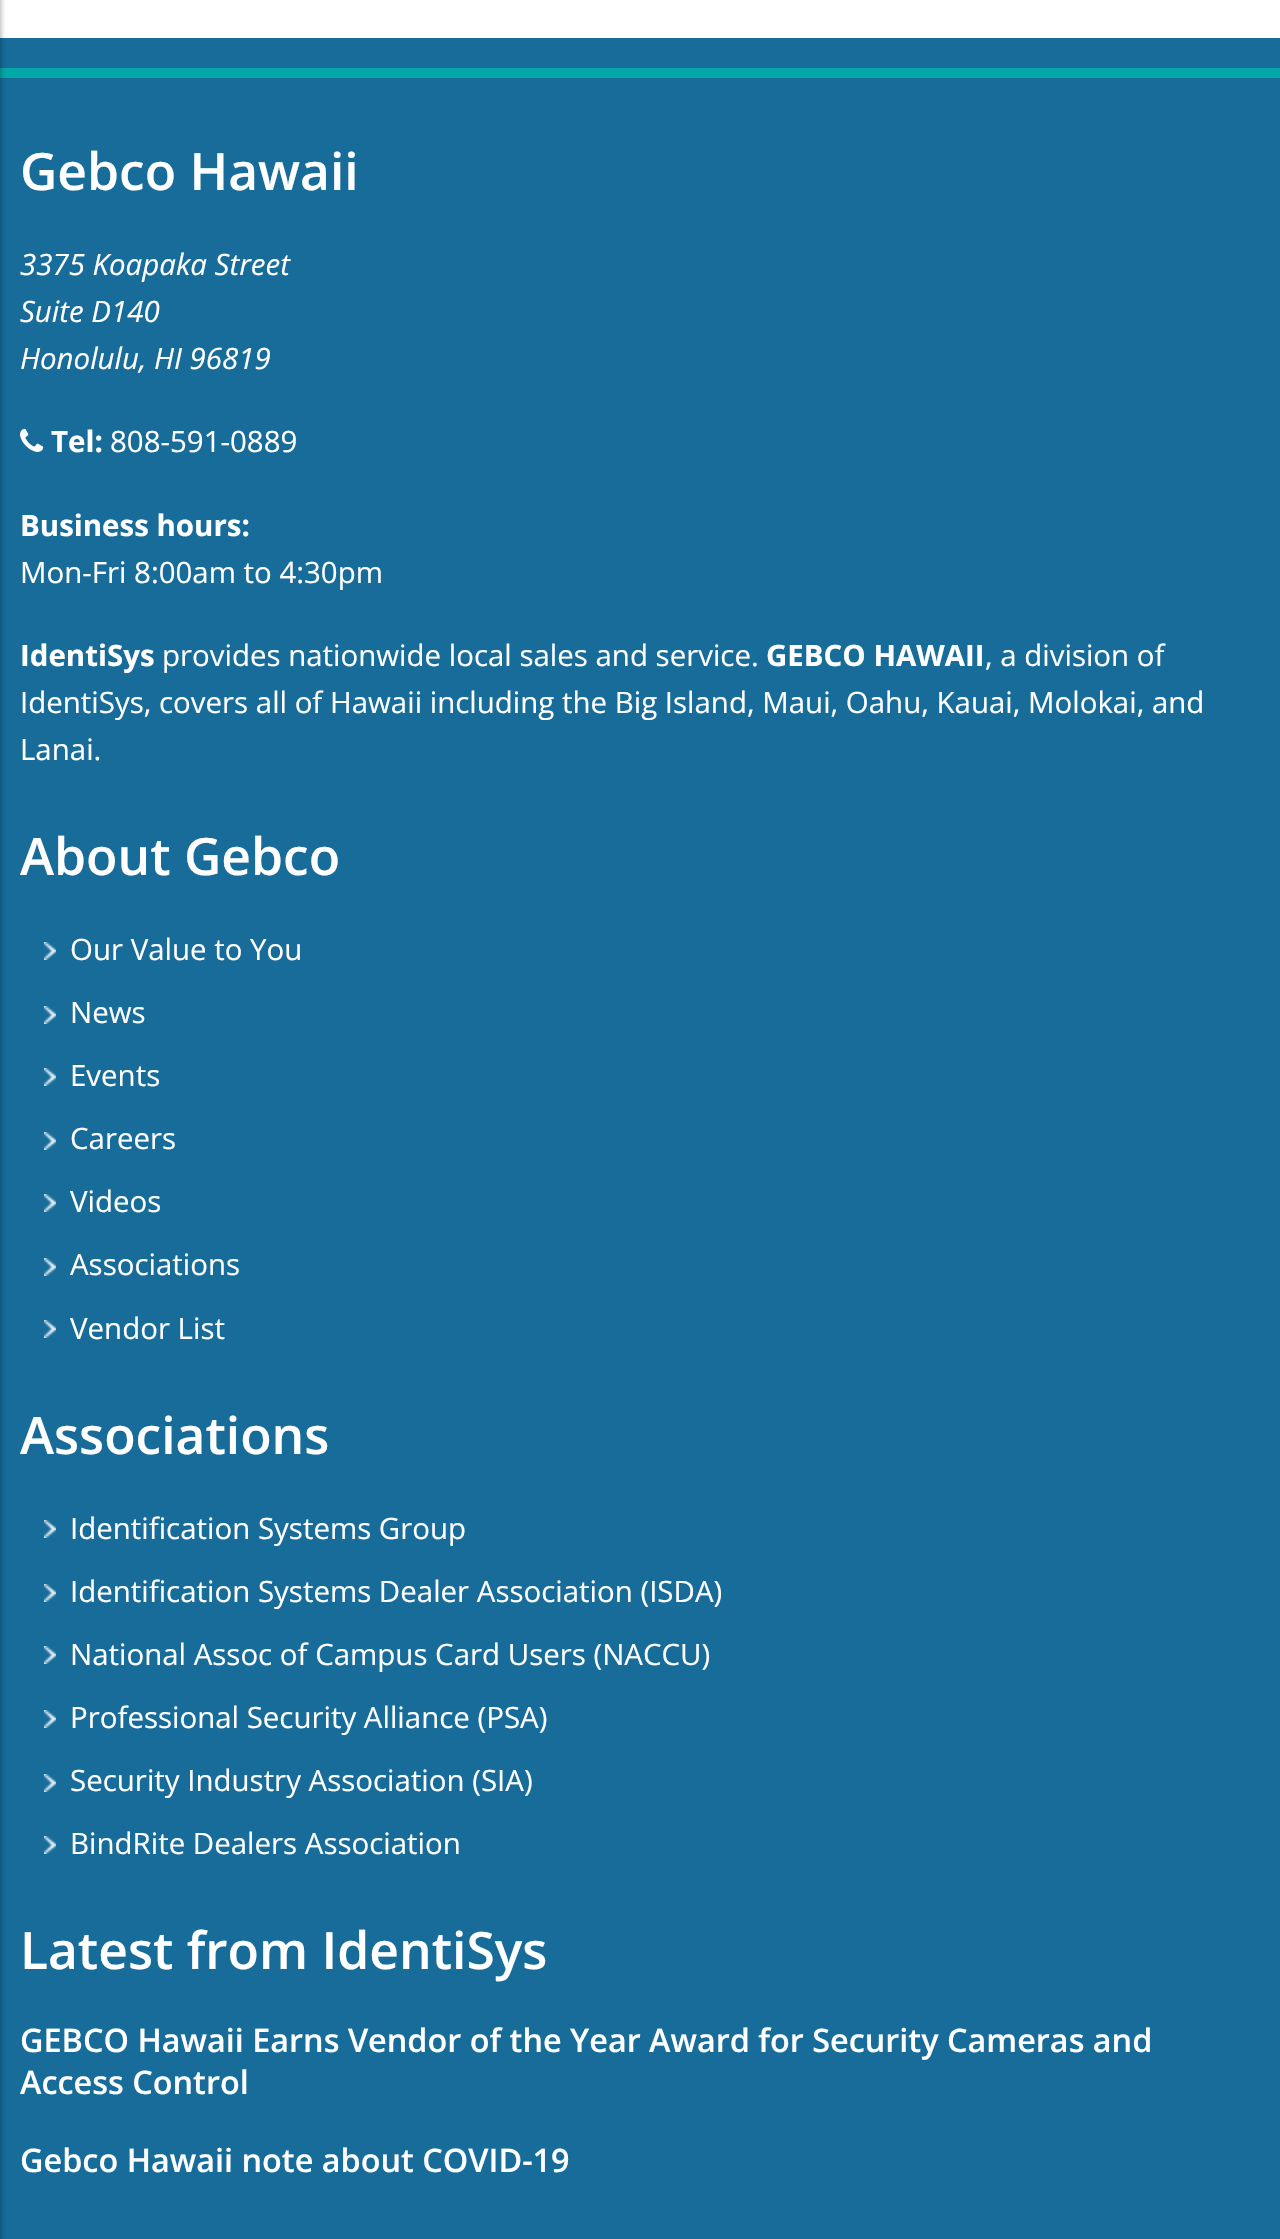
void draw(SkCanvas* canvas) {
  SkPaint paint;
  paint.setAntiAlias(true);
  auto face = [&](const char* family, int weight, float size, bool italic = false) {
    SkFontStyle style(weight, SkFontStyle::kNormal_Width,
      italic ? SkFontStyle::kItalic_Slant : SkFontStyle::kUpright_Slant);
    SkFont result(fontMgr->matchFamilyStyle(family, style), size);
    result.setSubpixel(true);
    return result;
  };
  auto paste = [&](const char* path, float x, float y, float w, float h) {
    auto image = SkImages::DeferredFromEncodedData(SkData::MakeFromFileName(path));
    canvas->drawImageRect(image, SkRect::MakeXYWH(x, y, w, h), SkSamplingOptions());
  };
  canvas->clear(0xffffffff);
  paint.setColor(0xff176c9a);
  canvas->drawRect(SkRect::MakeXYWH(0, 38, 1280, 2201), paint);
  paint.setColor(0xff04a7a7);
  canvas->drawRect(SkRect::MakeXYWH(0, 68, 1280, 10), paint);
  paint.setColor(0x66000000);
  paint.setMaskFilter(SkMaskFilter::MakeBlur(kNormal_SkBlurStyle, 3));
  canvas->drawRect(SkRect::MakeXYWH(-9, -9, 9, 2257), paint);
  paint.setMaskFilter(nullptr);
  paste("img/1.png", 20, 428, 24, 24);
  paste("img/2.png", 44, 942, 12, 18);
  paste("img/2.png", 44, 1006, 12, 18);
  paste("img/2.png", 44, 1068, 12, 18);
  paste("img/2.png", 44, 1132, 12, 18);
  paste("img/2.png", 44, 1194, 12, 18);
  paste("img/2.png", 44, 1258, 12, 18);
  paste("img/2.png", 44, 1320, 12, 18);
  paste("img/2.png", 44, 1520, 12, 18);
  paste("img/2.png", 44, 1584, 12, 18);
  paste("img/2.png", 44, 1646, 12, 18);
  paste("img/2.png", 44, 1710, 12, 18);
  paste("img/2.png", 44, 1774, 12, 18);
  paste("img/2.png", 44, 1836, 12, 18);
  auto f0 = face("Open Sans", 600, 51.5f);
  paint.setColor(0xffffffff);
  canvas->drawString("Gebco Hawaii", 20, 190, f0, paint);
  auto f1 = face("Open Sans", 400, 29.45f, true);
  {
    const struct { const char* s; float x, y; } items[] = {
      {"3375 Koapaka Street", 20, 275},
      {"Suite D140", 20, 322},
      {"Honolulu, HI 96819", 20, 369},
    };
    for (auto [s, x, y] : items) {
      canvas->drawString(s, x, y, f1, paint);
    }
  }
  auto f2 = face("Open Sans", 700, 29.45f);
  canvas->drawString("Tel:", 51, 452, f2, paint);
  auto f3 = face("Open Sans", 400, 29.45f);
  canvas->drawString("808-591-0889", 110, 452, f3, paint);
  canvas->drawString("Business hours:", 20, 536, f2, paint);
  canvas->drawString("Mon-Fri 8:00am to 4:30pm", 20, 583, f3, paint);
  canvas->drawString("IdentiSys", 20, 666, f2, paint);
  canvas->drawString("provides nationwide local sales and service.", 162, 666, f3, paint);
  canvas->drawString("GEBCO HAWAII", 766, 666, f2, paint);
  {
    const struct { const char* s; float x, y; } items[] = {
      {", a division of", 985, 666},
      {"IdentiSys, covers all of Hawaii including the Big Island, Maui, Oahu, Kauai, Molokai, and", 20, 713},
      {"Lanai.", 20, 760},
    };
    for (auto [s, x, y] : items) {
      canvas->drawString(s, x, y, f3, paint);
    }
  }
  canvas->drawString("About Gebco", 20, 875, f0, paint);
  {
    const struct { const char* s; float x, y; } items[] = {
      {"Our Value to You", 70, 960},
      {"News", 70, 1023},
      {"Events", 70, 1086},
      {"Careers", 70, 1149},
      {"Videos", 70, 1212},
      {"Associations", 70, 1275},
      {"Vendor List", 70, 1339},
    };
    for (auto [s, x, y] : items) {
      canvas->drawString(s, x, y, f3, paint);
    }
  }
  canvas->drawString("Associations", 20, 1454, f0, paint);
  {
    const struct { const char* s; float x, y; } items[] = {
      {"Identification Systems Group", 70, 1539},
      {"Identification Systems Dealer Association (ISDA)", 70, 1602},
      {"National Assoc of Campus Card Users (NACCU)", 70, 1665},
      {"Professional Security Alliance (PSA)", 70, 1728},
      {"Security Industry Association (SIA)", 70, 1791},
      {"BindRite Dealers Association", 70, 1854},
    };
    for (auto [s, x, y] : items) {
      canvas->drawString(s, x, y, f3, paint);
    }
  }
  canvas->drawString("Latest from IdentiSys", 20, 1969, f0, paint);
  auto f4 = face("Open Sans", 600, 32.4f);
  {
    const struct { const char* s; float x, y; } items[] = {
      {"GEBCO Hawaii Earns Vendor of the Year Award for Security Cameras and", 20, 2052},
      {"Access Control", 20, 2094},
      {"Gebco Hawaii note about COVID-19", 20, 2172},
    };
    for (auto [s, x, y] : items) {
      canvas->drawString(s, x, y, f4, paint);
    }
  }
}
